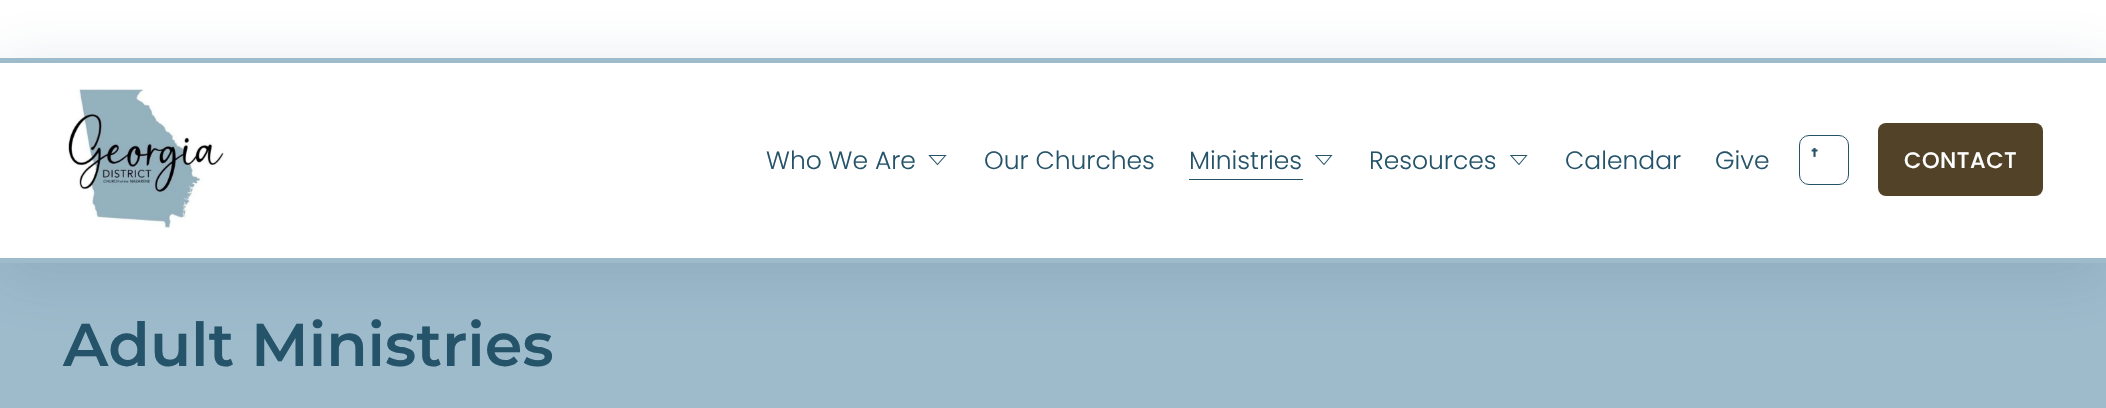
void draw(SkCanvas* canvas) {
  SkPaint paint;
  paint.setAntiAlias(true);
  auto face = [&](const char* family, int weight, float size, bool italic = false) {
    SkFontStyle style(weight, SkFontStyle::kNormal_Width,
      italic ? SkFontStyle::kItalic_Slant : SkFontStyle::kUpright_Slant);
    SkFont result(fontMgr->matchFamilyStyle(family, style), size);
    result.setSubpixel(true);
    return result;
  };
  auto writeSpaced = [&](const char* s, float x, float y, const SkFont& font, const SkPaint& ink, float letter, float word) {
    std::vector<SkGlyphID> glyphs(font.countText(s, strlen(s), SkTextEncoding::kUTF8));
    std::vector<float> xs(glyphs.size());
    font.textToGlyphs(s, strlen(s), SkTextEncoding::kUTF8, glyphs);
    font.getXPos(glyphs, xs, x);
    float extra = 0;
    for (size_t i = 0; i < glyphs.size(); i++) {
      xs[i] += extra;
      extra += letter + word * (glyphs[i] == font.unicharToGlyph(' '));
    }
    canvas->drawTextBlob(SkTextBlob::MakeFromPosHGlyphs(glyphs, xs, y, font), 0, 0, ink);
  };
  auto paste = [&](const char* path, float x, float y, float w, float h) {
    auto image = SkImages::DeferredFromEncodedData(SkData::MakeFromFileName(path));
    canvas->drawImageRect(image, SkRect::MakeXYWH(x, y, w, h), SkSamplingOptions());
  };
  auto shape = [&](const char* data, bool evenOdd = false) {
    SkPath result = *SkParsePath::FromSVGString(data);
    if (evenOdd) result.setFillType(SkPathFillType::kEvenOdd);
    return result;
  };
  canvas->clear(0xff9ebbcc);
  paint.setColor(0xffffffff);
  canvas->drawRect(SkRect::MakeXYWH(0, 0, 2106, 258), paint);
  canvas->save();
  canvas->clipPath(shape("M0 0H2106V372H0ZM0 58H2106V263H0Z", true), true);
  paint.setColor(0x2625546a);
  paint.setMaskFilter(SkMaskFilter::MakeBlur(kNormal_SkBlurStyle, 30));
  canvas->drawRect(SkRect::MakeXYWH(-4, 69, 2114, 212), paint);
  paint.setMaskFilter(nullptr);
  canvas->restore();
  paint.setColor(0xff9ebbcc);
  canvas->drawRect(SkRect::MakeXYWH(0, 58, 2106, 5), paint);
  canvas->drawRect(SkRect::MakeXYWH(0, 262, 2106, 1), paint);
  paste("img/1.png", 68, 88, 156, 141);
  paint.setStroke(true);
  paint.setStrokeWidth(1.1f);
  paint.setStrokeCap(SkPaint::kSquare_Cap);
  paint.setColor(0xff25546a);
  canvas->drawPath(shape("M945.5 155.5L937.5 164.5L929.5 155.5Z"), paint);
  paint.setStroke(false);
  canvas->drawRect(SkRect::MakeXYWH(1189, 179, 114, 1), paint);
  paint.setStroke(true);
  canvas->drawPath(shape("M1331.5 155.5L1324 164.5L1316 155.5Z"), paint);
  canvas->drawPath(shape("M1526.5 155.5L1519 164.5L1511 155.5Z"), paint);
  paint.setStrokeWidth(1);
  paint.setStrokeCap(SkPaint::kButt_Cap);
  canvas->drawRoundRect(SkRect::MakeXYWH(1799.5f, 135.5f, 49, 49), 9.5f, 9.5f, paint);
  paste("img/2.png", 1811, 148, 7, 9);
  paint.setStroke(false);
  paint.setColor(0xff524328);
  canvas->drawRoundRect(SkRect::MakeXYWH(1878, 123, 165, 73), 8, 8, paint);
  auto f0 = face("Poppins", 300, 25);
  paint.setColor(0xff25546a);
  {
    const struct { const char* s; float x, y; } items[] = {
      {"Who We Are", 766, 169},
      {"Our Churches", 984, 169},
      {"Ministries", 1189, 169},
      {"Resources", 1369, 169},
      {"Calendar", 1565, 169},
      {"Give", 1715, 169},
    };
    for (auto [s, x, y] : items) {
      canvas->drawString(s, x, y, f0, paint);
    }
  }
  auto f1 = face("Poppins", 500, 22.5f);
  paint.setColor(0xffffffff);
  writeSpaced("CONTACT", 1904, 168, f1, paint, 0.5f, 0);
  auto f2 = face("Montserrat", 600, 60.5f);
  paint.setColor(0xff25546a);
  canvas->drawString("Adult Ministries", 63, 366, f2, paint);
}
